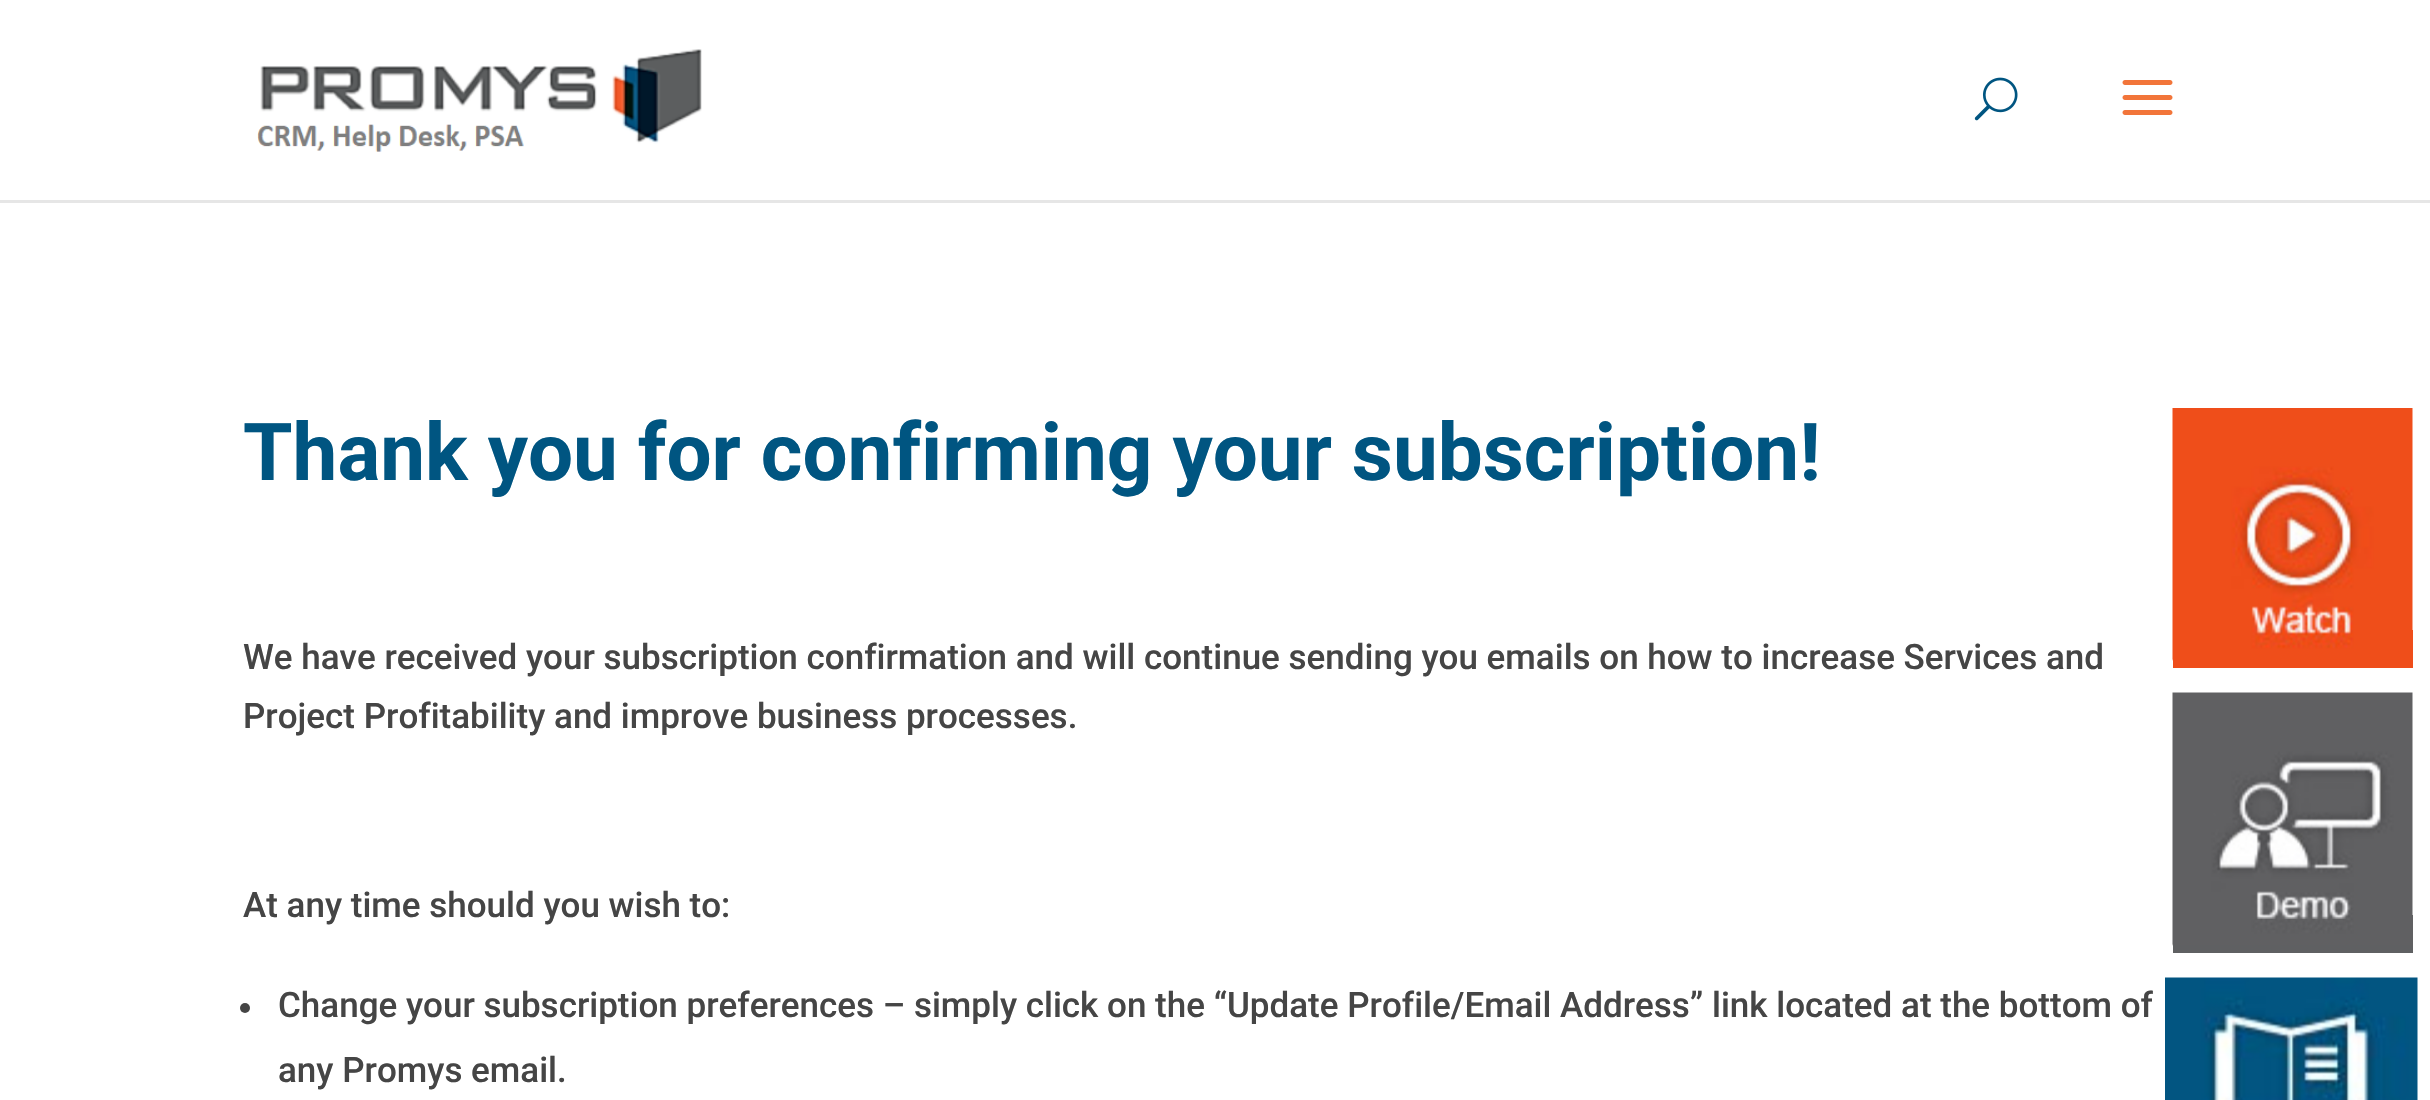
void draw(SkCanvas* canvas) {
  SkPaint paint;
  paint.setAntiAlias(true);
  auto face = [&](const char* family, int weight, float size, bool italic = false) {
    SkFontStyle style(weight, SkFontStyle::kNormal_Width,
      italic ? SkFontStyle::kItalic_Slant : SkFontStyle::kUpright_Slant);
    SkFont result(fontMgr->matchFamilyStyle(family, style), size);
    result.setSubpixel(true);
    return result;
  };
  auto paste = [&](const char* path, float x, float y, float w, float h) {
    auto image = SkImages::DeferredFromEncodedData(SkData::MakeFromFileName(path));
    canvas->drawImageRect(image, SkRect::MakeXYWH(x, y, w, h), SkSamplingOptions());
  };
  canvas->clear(0xffffffff);
  paint.setColor(0xffe6e6e6);
  canvas->drawRect(SkRect::MakeXYWH(0, 200, 2430, 3), paint);
  paste("img/1.png", 257, 49, 445, 103);
  paste("img/2.png", 1974, 77, 44, 44);
  paste("img/3.png", 2122, 80, 51, 35);
  paint.setColor(0xff454545);
  canvas->drawCircle(245, 1008, 5, paint);
  paint.setColor(0xffef4d1a);
  canvas->drawRect(SkRect::MakeXYWH(2173, 630, 240, 38), paint);
  paste("img/4.png", 2172, 408, 241, 253);
  paint.setColor(0xff5f6062);
  canvas->drawRect(SkRect::MakeXYWH(2173, 915, 240, 38), paint);
  paste("img/5.png", 2172, 692, 241, 254);
  paste("img/6.png", 2165, 977, 253, 123);
  auto f0 = face("Roboto", 700, 80);
  paint.setColor(0xff005581);
  canvas->drawString("Thank you for confirming your subscription!", 243, 480, f0, paint);
  auto f1 = face("Roboto", 500, 35);
  paint.setColor(0xff454545);
  {
    const struct { const char* s; float x, y; } items[] = {
      {"We have received your subscription confirmation and will continue sending you emails on how to increase Services and", 243, 669},
      {"Project Profitability and improve business processes.", 243, 728},
      {"At any time should you wish to:", 243, 917},
      {"Change your subscription preferences – simply click on the “Update Profile/Email Address” link located at the bottom of", 278, 1017},
      {"any Promys email.", 278, 1082},
    };
    for (auto [s, x, y] : items) {
      canvas->drawString(s, x, y, f1, paint);
    }
  }
}
